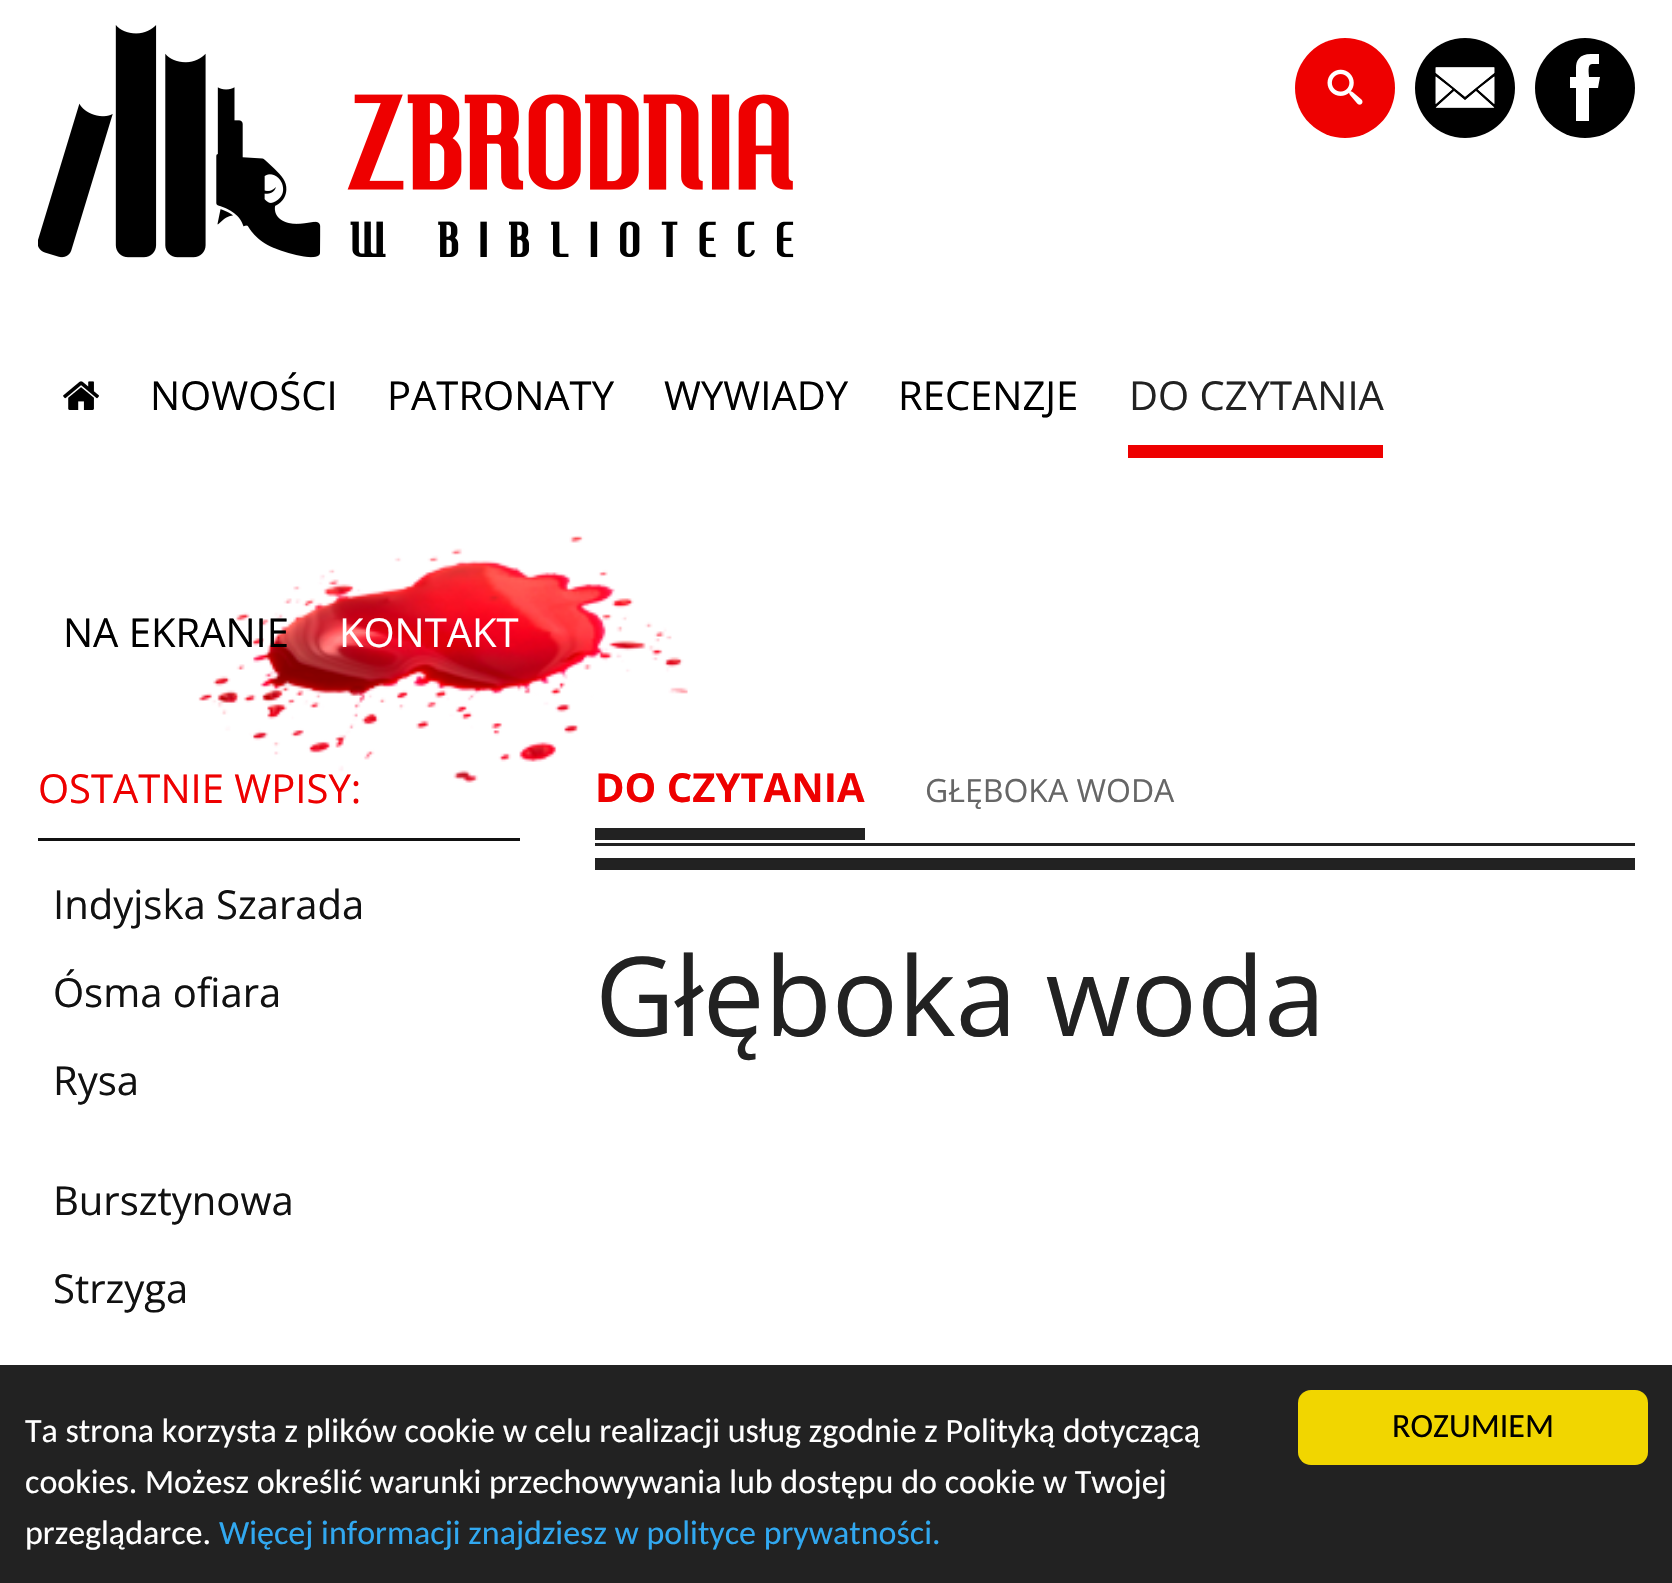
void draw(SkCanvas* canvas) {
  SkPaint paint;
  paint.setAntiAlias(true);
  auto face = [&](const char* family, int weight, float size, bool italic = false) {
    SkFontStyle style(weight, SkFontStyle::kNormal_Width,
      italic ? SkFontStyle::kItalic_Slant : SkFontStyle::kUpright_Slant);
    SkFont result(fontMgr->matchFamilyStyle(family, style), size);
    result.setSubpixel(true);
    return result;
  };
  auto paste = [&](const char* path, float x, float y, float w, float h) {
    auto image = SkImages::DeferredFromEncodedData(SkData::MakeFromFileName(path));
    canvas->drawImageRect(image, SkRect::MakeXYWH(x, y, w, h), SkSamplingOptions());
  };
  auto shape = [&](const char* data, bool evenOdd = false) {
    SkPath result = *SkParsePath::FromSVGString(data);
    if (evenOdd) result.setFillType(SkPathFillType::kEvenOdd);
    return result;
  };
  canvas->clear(0xffffffff);
  paste("img/1.png", 38, 25, 756, 233);
  paint.setColor(0xffee0000);
  canvas->drawCircle(1345, 88, 50, paint);
  paste("img/2.png", 1327, 69, 36, 36);
  paste("img/3.png", 1415, 38, 100, 100);
  paint.setColor(0xff000000);
  canvas->drawCircle(1585, 88, 50, paint);
  paint.setColor(0xffffffff);
  canvas->drawPath(shape("M1592 64H1599V54H1591C1579 54 1576 61 1576 68V77H1570V88H1576V121H1589V88H1598L1600 77H1589C1589 74 1587 64 1592 64"), paint);
  paste("img/4.png", 63, 381, 36, 29);
  paint.setColor(0xffee0000);
  canvas->drawRect(SkRect::MakeXYWH(1128, 445, 255, 13), paint);
  paste("img/5.png", 198, 535, 490, 248);
  {
    const struct { float x, y, w, h; SkColor color; } items[] = {
      {38, 838, 482, 3, 0xff111111},
      {595, 828, 270, 12, 0xff222222},
      {595, 858, 1040, 12, 0xff222222},
      {595, 843, 1040, 3, 0xff222222},
      {0, 1365, 1672, 218, 0xff222222},
    };
    for (auto [x, y, w, h, color] : items) {
      paint.setColor(color);
      canvas->drawRect(SkRect::MakeXYWH(x, y, w, h), paint);
    }
  }
  paint.setColor(0xfff1d600);
  canvas->drawRoundRect(SkRect::MakeXYWH(1298, 1390, 350, 75), 13, 13, paint);
  auto f0 = face("Open Sans", 400, 40);
  paint.setColor(0xff000000);
  {
    const struct { const char* s; float x, y; } items[] = {
      {"NOWOŚCI", 150, 410},
      {"PATRONATY", 387, 410},
      {"WYWIADY", 664, 410},
      {"RECENZJE", 898, 410},
    };
    for (auto [s, x, y] : items) {
      canvas->drawString(s, x, y, f0, paint);
    }
  }
  paint.setColor(0xff222222);
  canvas->drawString("DO CZYTANIA", 1129, 410, f0, paint);
  paint.setColor(0xff000000);
  canvas->drawString("NA EKRANIE", 63, 647, f0, paint);
  paint.setColor(0xffffffff);
  canvas->drawString("KONTAKT", 339, 647, f0, paint);
  paint.setColor(0xffee0000);
  canvas->drawString("OSTATNIE WPISY:", 38, 803, f0, paint);
  paint.setColor(0xff111111);
  {
    const struct { const char* s; float x, y; } items[] = {
      {"Indyjska Szarada", 53, 919},
      {"Ósma ofiara", 53, 1007},
      {"Rysa", 53, 1095},
      {"Bursztynowa", 53, 1215},
      {"Strzyga", 53, 1303},
    };
    for (auto [s, x, y] : items) {
      canvas->drawString(s, x, y, f0, paint);
    }
  }
  auto f1 = face("Open Sans", 700, 40);
  paint.setColor(0xffee0000);
  canvas->drawString("DO CZYTANIA", 595, 802, f1, paint);
  auto f2 = face("Open Sans", 400, 32);
  paint.setColor(0xff666666);
  canvas->drawString("GŁĘBOKA WODA", 925, 802, f2, paint);
  auto f3 = face("Open Sans", 400, 110);
  paint.setColor(0xff222222);
  canvas->drawString("Głęboka woda", 595, 1036, f3, paint);
  auto f4 = face("Carlito", 400, 34);
  paint.setColor(0xffffffff);
  {
    const struct { const char* s; float x, y; } items[] = {
      {"Ta strona korzysta z plików cookie w celu realizacji usług zgodnie z Polityką dotyczącą", 25, 1442},
      {"cookies. Możesz określić warunki przechowywania lub dostępu do cookie w Twojej", 25, 1493},
      {"przeglądarce.", 25, 1544},
    };
    for (auto [s, x, y] : items) {
      canvas->drawString(s, x, y, f4, paint);
    }
  }
  paint.setColor(0xff31a8f0);
  canvas->drawString("Więcej informacji znajdziesz w polityce prywatności.", 219, 1544, f4, paint);
  paint.setColor(0xff000000);
  canvas->drawString("ROZUMIEM", 1392, 1437, f4, paint);
}
